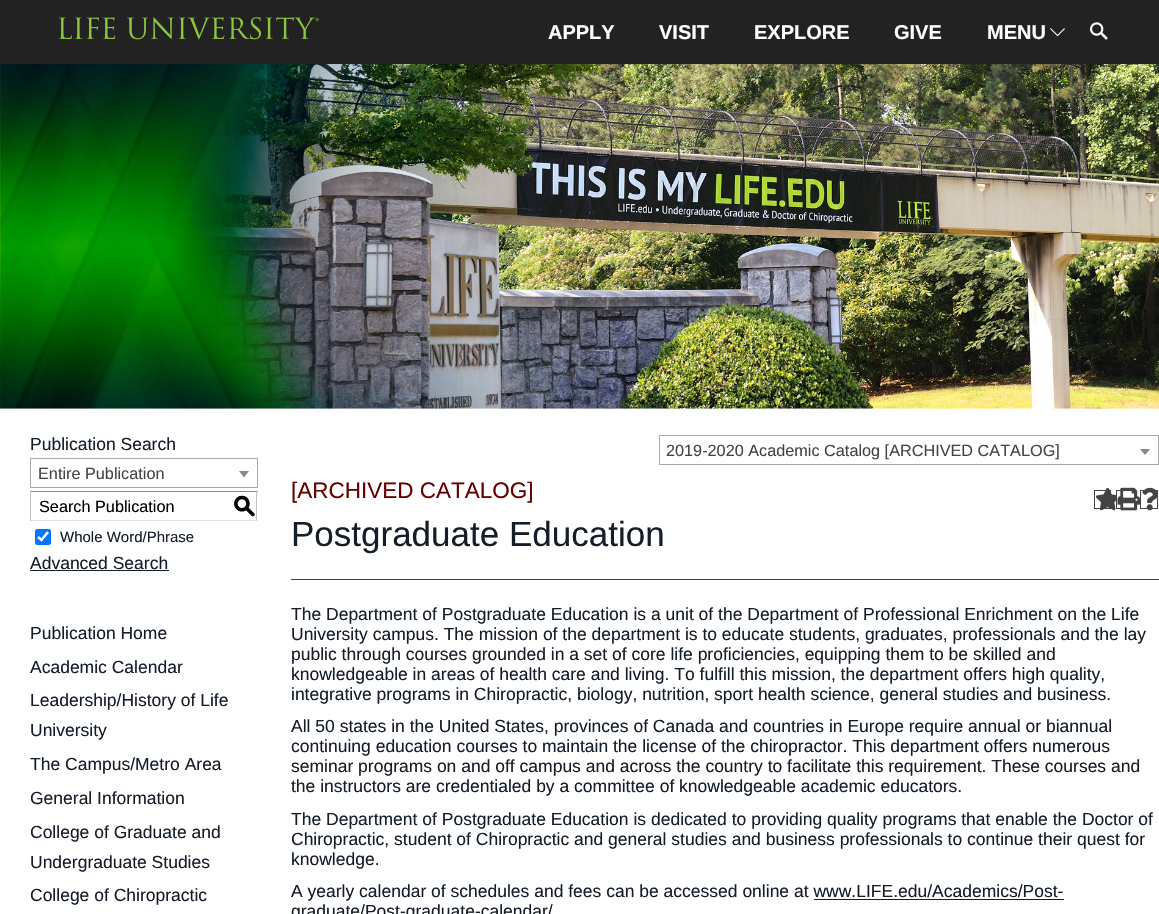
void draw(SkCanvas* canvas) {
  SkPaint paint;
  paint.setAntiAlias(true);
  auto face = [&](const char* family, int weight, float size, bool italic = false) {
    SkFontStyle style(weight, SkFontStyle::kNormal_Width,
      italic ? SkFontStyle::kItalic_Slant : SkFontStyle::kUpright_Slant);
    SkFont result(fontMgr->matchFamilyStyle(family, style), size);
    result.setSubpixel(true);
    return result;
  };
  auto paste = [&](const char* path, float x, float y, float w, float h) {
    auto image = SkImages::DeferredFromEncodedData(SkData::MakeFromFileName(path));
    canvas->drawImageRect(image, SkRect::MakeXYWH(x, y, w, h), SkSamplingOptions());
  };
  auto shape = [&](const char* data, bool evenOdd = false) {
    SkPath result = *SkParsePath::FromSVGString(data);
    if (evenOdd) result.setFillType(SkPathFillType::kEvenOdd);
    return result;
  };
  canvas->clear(0xffffffff);
  paint.setColor(0xff222222);
  canvas->drawRect(SkRect::MakeXYWH(0, 0, 1159, 64), paint);
  paste("img/1.png", 58, 17, 261, 23);
  paste("img/2.png", 1050, 28, 15, 9);
  paste("img/3.png", 1090, 22, 18, 18);
  paste("img/4.png", 0, 64, 1159, 345);
  paint.setStroke(true);
  paint.setStrokeWidth(1);
  paint.setColor(0xffaaaaaa);
  canvas->drawRect(SkRect::MakeXYWH(30.5f, 458.5f, 227, 29), paint);
  paint.setStroke(false);
  paint.setColor(0xff888888);
  canvas->drawPath(shape("M239 471H249L244 477.5Z"), paint);
  {
    const struct { float x, y, w, h; SkColor color; } items[] = {
      {30, 491, 228, 1, 0xff848484},
      {256, 491, 1, 30, 0xffc1c1c1},
      {30, 520, 228, 1, 0xffe1e1e1},
      {30, 491, 1, 30, 0xffc1c1c1},
    };
    for (auto [x, y, w, h, color] : items) {
      paint.setColor(color);
      canvas->drawRect(SkRect::MakeXYWH(x, y, w, h), paint);
    }
  }
  paint.setColor(0xff0075ff);
  canvas->drawRoundRect(SkRect::MakeXYWH(35, 529, 16, 16), 2.5f, 2.5f, paint);
  paint.setStroke(true);
  paint.setStrokeWidth(2.6f);
  paint.setColor(0xffffffff);
  canvas->drawPath(shape("M38 537L41.5 540L48 532"), paint);
  paint.setStroke(false);
  paint.setColor(0xff141d28);
  canvas->drawRect(SkRect::MakeXYWH(30, 570, 139, 1), paint);
  paint.setStroke(true);
  paint.setStrokeWidth(1);
  paint.setColor(0xff444444);
  canvas->drawRect(SkRect::MakeXYWH(1094.5f, 490.5f, 16, 18), paint);
  paste("img/5.png", 1095, 487, 21, 24);
  canvas->drawRect(SkRect::MakeXYWH(1116.5f, 490.5f, 18, 18), paint);
  paste("img/6.png", 1117, 487, 23, 24);
  canvas->drawRect(SkRect::MakeXYWH(1140.5f, 490.5f, 17, 18), paint);
  paste("img/7.png", 1142, 487, 15, 24);
  paint.setStroke(false);
  canvas->drawRect(SkRect::MakeXYWH(291, 579, 868, 1), paint);
  paint.setColor(0xff141d28);
  canvas->drawRect(SkRect::MakeXYWH(814, 899, 250, 1), paint);
  paint.setStroke(true);
  paint.setColor(0xffaaaaaa);
  canvas->drawRect(SkRect::MakeXYWH(659.5f, 435.5f, 499, 29), paint);
  paint.setStroke(false);
  paint.setColor(0xff888888);
  canvas->drawPath(shape("M1140 449H1150L1145 455Z"), paint);
  auto f0 = face("Liberation Sans", 700, 20);
  paint.setColor(0xffffffff);
  {
    const struct { const char* s; float x, y; } items[] = {
      {"APPLY", 548, 39},
      {"VISIT", 659, 39},
      {"EXPLORE", 754, 39},
      {"GIVE", 894, 39},
      {"MENU", 987, 39},
    };
    for (auto [s, x, y] : items) {
      canvas->drawString(s, x, y, f0, paint);
    }
  }
  auto f1 = face("Liberation Sans", 400, 17.5f);
  paint.setColor(0xff141d28);
  canvas->drawString("Publication Search", 30, 450, f1, paint);
  auto f2 = face("Liberation Sans", 400, 16.25f);
  paint.setColor(0xff444444);
  canvas->drawString("Entire Publication", 38, 479, f2, paint);
  paint.setColor(0xff000000);
  canvas->drawString("Search Publication", 39, 512, f2, paint);
  auto f3 = face("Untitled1", 500, 22.5f);
  canvas->drawString("S", 233, 513, f3, paint);
  auto f4 = face("Liberation Sans", 400, 15);
  paint.setColor(0xff141d28);
  canvas->drawString("Whole Word/Phrase", 60, 542, f4, paint);
  {
    const struct { const char* s; float x, y; } items[] = {
      {"Advanced Search", 30, 569},
      {"Publication Home", 30, 639},
      {"Academic Calendar", 30, 673},
      {"Leadership/History of Life", 30, 706},
      {"University", 30, 736},
      {"The Campus/Metro Area", 30, 770},
      {"General Information", 30, 804},
      {"College of Graduate and", 30, 838},
      {"Undergraduate Studies", 30, 868},
      {"College of Chiropractic", 30, 901},
    };
    for (auto [s, x, y] : items) {
      canvas->drawString(s, x, y, f1, paint);
    }
  }
  auto f5 = face("Liberation Sans", 400, 22.5f);
  paint.setColor(0xff660000);
  canvas->drawString("[ARCHIVED CATALOG]", 291, 498, f5, paint);
  auto f6 = face("Liberation Sans", 400, 35);
  paint.setColor(0xff141d28);
  canvas->drawString("Postgraduate Education", 291, 546, f6, paint);
  {
    const struct { const char* s; float x, y; } items[] = {
      {"The Department of Postgraduate Education is a unit of the Department of Professional Enrichment on the Life", 291, 620},
      {"University campus. The mission of the department is to educate students, graduates, professionals and the lay", 291, 640},
      {"public through courses grounded in a set of core life proficiencies, equipping them to be skilled and", 291, 660},
      {"knowledgeable in areas of health care and living. To fulfill this mission, the department offers high quality,", 291, 680},
      {"integrative programs in Chiropractic, biology, nutrition, sport health science, general studies and business.", 291, 700},
      {"All 50 states in the United States, provinces of Canada and countries in Europe require annual or biannual", 291, 732},
      {"continuing education courses to maintain the license of the chiropractor. This department offers numerous", 291, 752},
      {"seminar programs on and off campus and across the country to facilitate this requirement. These courses and", 291, 772},
      {"the instructors are credentialed by a committee of knowledgeable academic educators.", 291, 792},
      {"The Department of Postgraduate Education is dedicated to providing quality programs that enable the Doctor of", 291, 825},
      {"Chiropractic, student of Chiropractic and general studies and business professionals to continue their quest for", 291, 845},
      {"knowledge.", 291, 865},
      {"A yearly calendar of schedules and fees can be accessed online at www.LIFE.edu/Academics/Post-", 291, 897},
      {"graduate/Post-graduate-calendar/", 291, 917},
    };
    for (auto [s, x, y] : items) {
      canvas->drawString(s, x, y, f1, paint);
    }
  }
  paint.setColor(0xff444444);
  canvas->drawString("2019-2020 Academic Catalog [ARCHIVED CATALOG]", 666, 456, f2, paint);
}
